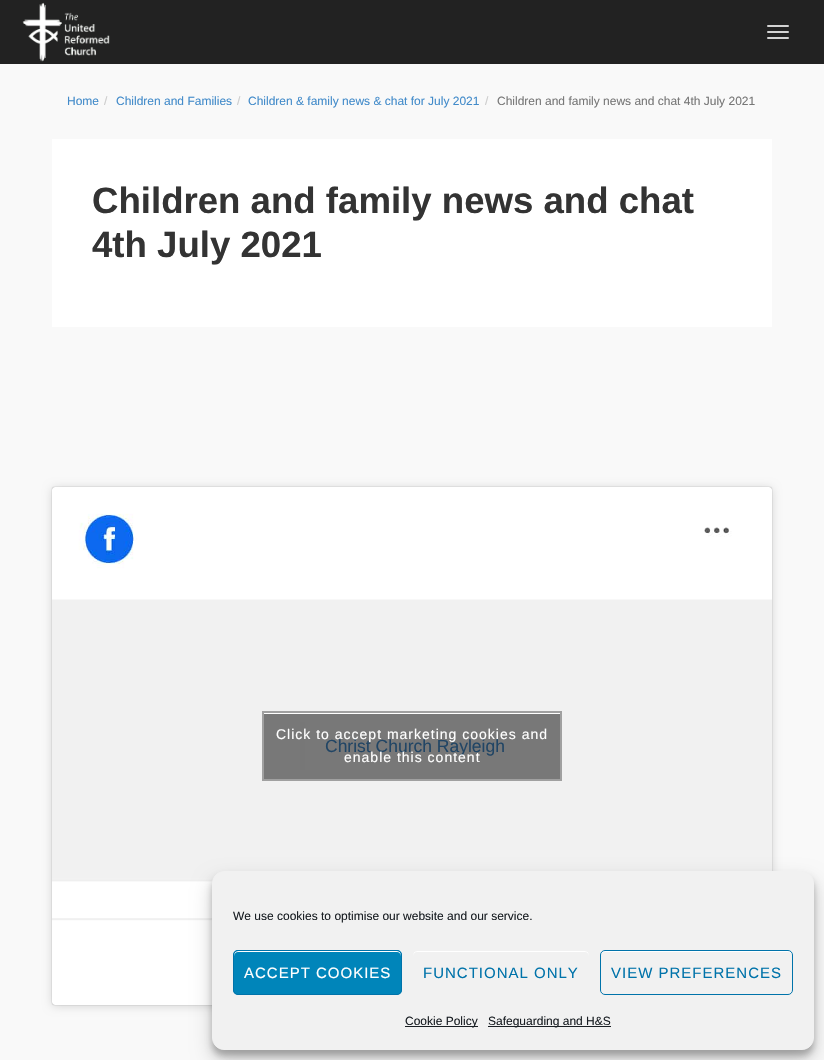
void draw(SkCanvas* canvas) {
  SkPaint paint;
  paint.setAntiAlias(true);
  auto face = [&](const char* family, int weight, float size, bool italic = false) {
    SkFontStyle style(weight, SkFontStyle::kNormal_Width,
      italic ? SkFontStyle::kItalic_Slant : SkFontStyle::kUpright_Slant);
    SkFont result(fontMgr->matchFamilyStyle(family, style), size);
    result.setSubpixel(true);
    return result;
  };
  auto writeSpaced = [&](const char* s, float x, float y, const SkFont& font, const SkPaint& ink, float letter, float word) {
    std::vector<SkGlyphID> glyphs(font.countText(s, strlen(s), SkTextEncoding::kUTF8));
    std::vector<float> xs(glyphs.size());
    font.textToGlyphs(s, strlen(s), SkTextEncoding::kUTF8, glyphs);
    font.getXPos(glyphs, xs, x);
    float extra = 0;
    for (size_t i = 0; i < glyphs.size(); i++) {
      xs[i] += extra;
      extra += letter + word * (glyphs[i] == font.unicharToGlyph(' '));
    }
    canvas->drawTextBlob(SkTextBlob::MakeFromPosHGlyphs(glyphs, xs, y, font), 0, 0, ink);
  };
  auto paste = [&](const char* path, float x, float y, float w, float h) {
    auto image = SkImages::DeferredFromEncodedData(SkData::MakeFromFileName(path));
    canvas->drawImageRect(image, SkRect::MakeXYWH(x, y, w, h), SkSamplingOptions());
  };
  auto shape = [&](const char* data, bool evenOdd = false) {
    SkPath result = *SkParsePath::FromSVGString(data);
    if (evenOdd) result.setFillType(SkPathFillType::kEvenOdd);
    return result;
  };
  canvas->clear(0xfff9f9f9);
  paint.setColor(0xff222222);
  canvas->drawRect(SkRect::MakeXYWH(0, 0, 824, 64), paint);
  paste("img/1.png", 22, 2, 88, 60);
  paint.setColor(0xffd3d3d3);
  canvas->drawRoundRect(SkRect::MakeXYWH(767, 25, 22, 2), 1, 1, paint);
  canvas->drawRoundRect(SkRect::MakeXYWH(767, 31, 22, 2), 1, 1, paint);
  canvas->drawRoundRect(SkRect::MakeXYWH(767, 37, 22, 2), 1, 1, paint);
  paint.setColor(0xffffffff);
  canvas->drawRect(SkRect::MakeXYWH(52, 139, 720, 188), paint);
  paint.setColor(0x26000000);
  paint.setMaskFilter(SkMaskFilter::MakeBlur(kNormal_SkBlurStyle, 5));
  canvas->drawRoundRect(SkRect::MakeXYWH(52, 488, 720, 518), 3, 3, paint);
  paint.setMaskFilter(nullptr);
  paint.setColor(0x80000000);
  paint.setMaskFilter(SkMaskFilter::MakeBlur(kNormal_SkBlurStyle, 0.5f));
  canvas->drawRoundRect(SkRect::MakeXYWH(52, 487, 720, 518), 3, 3, paint);
  paint.setMaskFilter(nullptr);
  paste("img/2.png", 52, 487, 720, 518);
  paint.setColor(0xffffffff);
  canvas->drawRect(SkRect::MakeXYWH(264, 713, 296, 1), paint);
  paint.setColor(0xffeeeeee);
  canvas->drawRect(SkRect::MakeXYWH(300, 722, 5, 48), paint);
  paint.setColor(0x3b000000);
  paint.setMaskFilter(SkMaskFilter::MakeBlur(kNormal_SkBlurStyle, 3));
  canvas->drawRoundRect(SkRect::MakeXYWH(212, 877, 602, 179), 12, 12, paint);
  paint.setMaskFilter(nullptr);
  paint.setColor(0x30000000);
  paint.setMaskFilter(SkMaskFilter::MakeBlur(kNormal_SkBlurStyle, 10));
  canvas->drawRoundRect(SkRect::MakeXYWH(212, 881, 602, 179), 12, 12, paint);
  paint.setMaskFilter(nullptr);
  paint.setColor(0xfff1f1f1);
  canvas->drawRoundRect(SkRect::MakeXYWH(212.5f, 871.5f, 601, 178), 11.5f, 11.5f, paint);
  paint.setStroke(true);
  paint.setStrokeWidth(1);
  canvas->drawRoundRect(SkRect::MakeXYWH(212.5f, 871.5f, 601, 178), 11.5f, 11.5f, paint);
  paint.setStroke(false);
  paint.setColor(0xff0085ba);
  canvas->drawRoundRect(SkRect::MakeXYWH(233, 950, 169, 45), 5, 5, paint);
  paint.setColor(0xffffffff);
  canvas->drawPath(shape("M238 952H397C399 952 401 954 401 956V955C401 953 399 951 397 951H238C236 951 234 953 234 955V956C234 954 236 952 238 952Z"), paint);
  paint.setStroke(true);
  paint.setColor(0xff0073aa);
  canvas->drawRoundRect(SkRect::MakeXYWH(233.5f, 950.5f, 168, 44), 4.5f, 4.5f, paint);
  paint.setStroke(false);
  paint.setColor(0xffffffff);
  canvas->drawPath(shape("M417 952H585C587 952 589 954 589 956V955C589 953 587 951 585 951H417C415 951 413 953 413 955V956C413 954 415 952 417 952Z"), paint);
  paint.setStroke(true);
  paint.setColor(0xfff1f1f1);
  canvas->drawRoundRect(SkRect::MakeXYWH(412.5f, 950.5f, 177, 44), 4.5f, 4.5f, paint);
  paint.setStroke(false);
  paint.setColor(0xffffffff);
  canvas->drawPath(shape("M605 952H788C790 952 792 954 792 956C792 953 791 951 788 951H604C602 952 601 954 601 956C601 954 603 952 605 952Z"), paint);
  paint.setStroke(true);
  paint.setColor(0xff0073aa);
  canvas->drawRoundRect(SkRect::MakeXYWH(600.5f, 950.5f, 192, 44), 4.5f, 4.5f, paint);
  paint.setStroke(false);
  paint.setColor(0xff191e23);
  canvas->drawRect(SkRect::MakeXYWH(405, 1026, 73, 1), paint);
  canvas->drawRect(SkRect::MakeXYWH(488, 1026, 123, 1), paint);
  auto f0 = face("Liberation Sans", 400, 12);
  paint.setColor(0xff428bca);
  canvas->drawString("Home", 67, 105, f0, paint);
  paint.setColor(0xffcccccc);
  canvas->drawString("/", 104, 105, f0, paint);
  paint.setColor(0xff428bca);
  canvas->drawString("Children and Families", 116, 105, f0, paint);
  paint.setColor(0xffcccccc);
  canvas->drawString("/", 237, 105, f0, paint);
  paint.setColor(0xff428bca);
  canvas->drawString("Children & family news & chat for July 2021", 248, 105, f0, paint);
  paint.setColor(0xffcccccc);
  canvas->drawString("/", 485, 105, f0, paint);
  paint.setColor(0xff777777);
  canvas->drawString("Children and family news and chat 4th July 2021", 497, 105, f0, paint);
  auto f1 = face("Liberation Sans", 700, 36.6f);
  paint.setColor(0xff333333);
  canvas->drawString("Children and family news and chat", 92, 213, f1, paint);
  canvas->drawString("4th July 2021", 92, 257, f1, paint);
  auto f2 = face("Liberation Sans", 400, 17.5f);
  paint.setColor(0xff428bca);
  canvas->drawString("Christ Church Rayleigh", 325, 752, f2, paint);
  paint.setColor(0x80000000);
  canvas->drawRect(SkRect::MakeXYWH(264, 714, 296, 65), paint);
  paint.setStroke(true);
  paint.setStrokeWidth(2);
  paint.setColor(0xffa0a0a0);
  canvas->drawRect(SkRect::MakeXYWH(263, 712, 298, 68), paint);
  auto f3 = face("Liberation Sans", 400, 14);
  paint.setStroke(false);
  paint.setColor(0xffffffff);
  writeSpaced("enable this content", 344, 762, f3, paint, 1, 0);
  writeSpaced("Click to accept marketing cookies and", 276, 739, f3, paint, 1, 0);
  paint.setColor(0xff191e23);
  canvas->drawString("We use cookies to optimise our website and our service.", 233, 920, f0, paint);
  auto f4 = face("Liberation Sans", 400, 15);
  paint.setColor(0xffffffff);
  writeSpaced("ACCEPT COOKIES", 244, 978, f4, paint, 1, 0);
  paint.setColor(0xff0073aa);
  writeSpaced("FUNCTIONAL ONLY", 423, 978, f4, paint, 1, 0);
  writeSpaced("VIEW PREFERENCES", 611, 978, f4, paint, 1, 0);
  paint.setColor(0xff191e23);
  canvas->drawString("Cookie Policy", 405, 1025, f0, paint);
  canvas->drawString("Safeguarding and H&S", 488, 1025, f0, paint);
}
